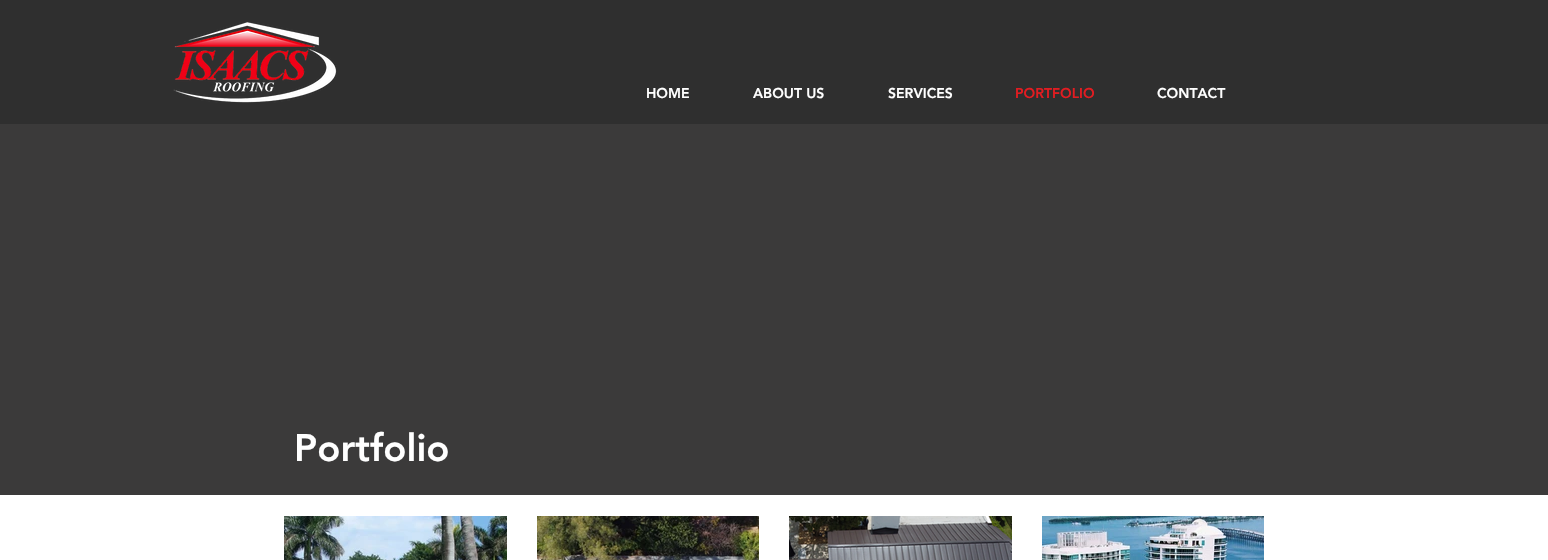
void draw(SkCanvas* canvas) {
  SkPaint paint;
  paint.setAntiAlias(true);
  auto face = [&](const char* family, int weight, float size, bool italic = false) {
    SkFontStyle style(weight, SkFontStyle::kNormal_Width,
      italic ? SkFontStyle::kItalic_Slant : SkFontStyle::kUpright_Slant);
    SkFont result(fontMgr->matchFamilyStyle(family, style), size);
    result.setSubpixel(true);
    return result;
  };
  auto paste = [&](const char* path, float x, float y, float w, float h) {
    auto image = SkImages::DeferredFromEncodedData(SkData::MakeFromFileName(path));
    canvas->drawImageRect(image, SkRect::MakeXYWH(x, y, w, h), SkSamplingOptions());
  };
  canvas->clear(0xffffffff);
  paint.setColor(0xff2f2f2f);
  canvas->drawRect(SkRect::MakeXYWH(0, 0, 1548, 124), paint);
  paste("img/1.png", 173, 22, 164, 81);
  paint.setColor(0xff3b3a3a);
  canvas->drawRect(SkRect::MakeXYWH(0, 124, 1548, 371), paint);
  paste("img/2.png", 284, 516, 223, 44);
  paste("img/3.png", 537, 516, 222, 44);
  paste("img/4.png", 789, 516, 223, 44);
  paste("img/5.png", 1042, 516, 222, 44);
  auto f0 = face("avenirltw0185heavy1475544", 900, 14);
  paint.setColor(0xffffffff);
  {
    const struct { const char* s; float x, y; } items[] = {
      {"HOME", 646, 98},
      {"ABOUT US", 753, 98},
      {"SERVICES", 888, 98},
    };
    for (auto [s, x, y] : items) {
      canvas->drawString(s, x, y, f0, paint);
    }
  }
  paint.setColor(0xffe21c21);
  canvas->drawString("PORTFOLIO", 1015, 98, f0, paint);
  paint.setColor(0xffffffff);
  canvas->drawString("CONTACT", 1157, 98, f0, paint);
  auto f1 = face("avenirltw0185heavy1475544", 900, 38);
  canvas->drawString("Portfolio", 294, 461, f1, paint);
}
